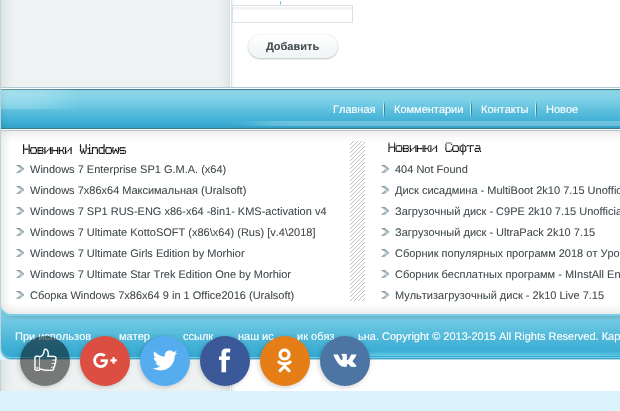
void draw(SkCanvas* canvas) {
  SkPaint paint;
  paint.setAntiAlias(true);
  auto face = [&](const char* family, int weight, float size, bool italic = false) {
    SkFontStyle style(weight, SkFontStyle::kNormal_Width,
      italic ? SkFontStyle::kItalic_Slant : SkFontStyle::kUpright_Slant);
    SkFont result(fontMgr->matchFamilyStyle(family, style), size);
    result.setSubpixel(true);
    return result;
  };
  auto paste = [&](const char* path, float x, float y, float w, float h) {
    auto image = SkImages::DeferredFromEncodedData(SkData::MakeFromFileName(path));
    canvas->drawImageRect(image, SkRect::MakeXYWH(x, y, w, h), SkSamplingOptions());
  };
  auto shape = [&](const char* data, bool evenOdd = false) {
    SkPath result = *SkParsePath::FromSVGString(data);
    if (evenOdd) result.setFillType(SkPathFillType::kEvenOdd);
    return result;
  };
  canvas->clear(0xffdaf3fd);
  paint.setColor(0xffffffff);
  canvas->drawRect(SkRect::MakeXYWH(235, 0, 385, 391), paint);
  paste("img/1.png", 0, 0, 235, 391);
  canvas->drawRect(SkRect::MakeXYWH(233, 6, 2, 16), paint);
  paint.setColor(0xfff5f5f5);
  canvas->drawRect(SkRect::MakeXYWH(232, 7, 121, 3), paint);
  paint.setStroke(true);
  paint.setStrokeWidth(1);
  paint.setColor(0xffd9e1e2);
  canvas->drawRect(SkRect::MakeXYWH(232.5f, 5.5f, 120, 17), paint);
  paint.setStroke(false);
  paint.setColor(0xffffffff);
  canvas->drawRect(SkRect::MakeXYWH(232, 23, 3, 1), paint);
  paste("img/2.png", 247, 34, 92, 26);
  paste("img/3.png", 75, 87, 545, 44);
  paste("img/4.png", 0, 87, 75, 44);
  paste("img/5.png", 231, 121, 389, 5);
  paste("img/6.png", 383, 100, 2, 20);
  paste("img/6.png", 470, 100, 2, 20);
  paste("img/6.png", 535, 100, 2, 20);
  canvas->drawRect(SkRect::MakeXYWH(9, 141, 226, 163), paint);
  paste("img/7.png", 0, 131, 9, 183);
  paste("img/8.png", 1, 131, 619, 10);
  paste("img/9.png", 1, 304, 619, 10);
  paste("img/10.png", 23, 141, 112, 13);
  paste("img/11.png", 16, 165, 8, 8);
  paste("img/11.png", 16, 186, 8, 8);
  paste("img/11.png", 16, 207, 8, 8);
  paste("img/11.png", 16, 228, 8, 8);
  paste("img/11.png", 16, 249, 8, 8);
  paste("img/11.png", 16, 270, 8, 8);
  paste("img/11.png", 16, 291, 8, 8);
  paste("img/12.png", 350, 141, 15, 160);
  paste("img/13.png", 388, 141, 119, 14);
  paste("img/11.png", 381, 165, 8, 8);
  paste("img/11.png", 381, 186, 8, 8);
  paste("img/11.png", 381, 207, 8, 8);
  paste("img/11.png", 381, 228, 8, 8);
  paste("img/11.png", 381, 249, 8, 8);
  paste("img/11.png", 381, 270, 8, 8);
  paste("img/11.png", 381, 291, 8, 8);
  paste("img/14.png", 11, 314, 609, 46);
  paste("img/15.png", 0, 314, 11, 46);
  paste("img/16.png", 367, 351, 253, 5);
  canvas->save();
  canvas->clipPath(shape("M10 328H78V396H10ZM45 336C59 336 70 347 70 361C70 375 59 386 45 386C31 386 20 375 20 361C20 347 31 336 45 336Z", true), true);
  paint.setColor(0x33000000);
  paint.setMaskFilter(SkMaskFilter::MakeBlur(kNormal_SkBlurStyle, 2.5f));
  canvas->drawRoundRect(SkRect::MakeXYWH(19, 337, 50, 50), 25, 25, paint);
  paint.setMaskFilter(nullptr);
  canvas->restore();
  paint.setMaskFilter(SkMaskFilter::MakeBlur(kNormal_SkBlurStyle, 2.5f));
  canvas->drawRoundRect(SkRect::MakeXYWH(79, 337, 50, 50), 25, 25, paint);
  paint.setMaskFilter(nullptr);
  paint.setMaskFilter(SkMaskFilter::MakeBlur(kNormal_SkBlurStyle, 2.5f));
  canvas->drawRoundRect(SkRect::MakeXYWH(139, 337, 50, 50), 25, 25, paint);
  paint.setMaskFilter(nullptr);
  paint.setMaskFilter(SkMaskFilter::MakeBlur(kNormal_SkBlurStyle, 2.5f));
  canvas->drawRoundRect(SkRect::MakeXYWH(199, 337, 50, 50), 25, 25, paint);
  paint.setMaskFilter(nullptr);
  paint.setMaskFilter(SkMaskFilter::MakeBlur(kNormal_SkBlurStyle, 2.5f));
  canvas->drawRoundRect(SkRect::MakeXYWH(259, 337, 50, 50), 25, 25, paint);
  paint.setMaskFilter(nullptr);
  paint.setMaskFilter(SkMaskFilter::MakeBlur(kNormal_SkBlurStyle, 2.5f));
  canvas->drawRoundRect(SkRect::MakeXYWH(319, 337, 50, 50), 25, 25, paint);
  paint.setMaskFilter(nullptr);
  auto f0 = face("Liberation Sans", 400, 11);
  paint.setColor(0xff3cadd3);
  canvas->drawString(",", 279, 3, f0, paint);
  auto f1 = face("Liberation Sans", 700, 11);
  paint.setColor(0xff434c4f);
  canvas->drawString("Добавить", 266, 50, f1, paint);
  paint.setColor(0xffffffff);
  {
    const struct { const char* s; float x, y; } items[] = {
      {"Главная", 333, 113},
      {"Комментарии", 394, 113},
      {"Контакты", 481, 113},
      {"Новое", 546, 113},
    };
    for (auto [s, x, y] : items) {
      canvas->drawString(s, x, y, f0, paint);
    }
  }
  paint.setColor(0xff434c4f);
  {
    const struct { const char* s; float x, y; } items[] = {
      {"Windows 7 Enterprise SP1 G.M.A. (х64)", 30, 173},
      {"Windows 7x86x64 Максимальная (Uralsoft)", 30, 194},
      {"Windows 7 SP1 RUS-ENG x86-x64 -8in1- KMS-activation v4", 30, 215},
      {"Windows 7 Ultimate KottoSOFT (x86\\x64) (Rus) [v.4\\2018]", 30, 236},
      {"Windows 7 Ultimate Girls Edition by Morhior", 30, 257},
      {"Windows 7 Ultimate Star Trek Edition One by Morhior", 30, 278},
      {"Сборка Windows 7x86x64 9 in 1 Office2016 (Uralsoft)", 30, 299},
      {"404 Not Found", 395, 173},
      {"Диск сисадмина - MultiBoot 2k10 7.15 Unoffic", 395, 194},
      {"Загрузочный диск - C9PE 2k10 7.15 Unofficia", 395, 215},
      {"Загрузочный диск - UltraPack 2k10 7.15", 395, 236},
      {"Сборник популярных программ 2018 от Уро", 395, 257},
      {"Сборник бесплатных программ - MInstAll En", 395, 278},
      {"Мультизагрузочный диск - 2k10 Live 7.15", 395, 299},
    };
    for (auto [s, x, y] : items) {
      canvas->drawString(s, x, y, f0, paint);
    }
  }
  paint.setColor(0xffffffff);
  {
    const struct { const char* s; float x, y; } items[] = {
      {"При использов", 15, 340},
      {"матер", 119, 340},
      {"ссылк", 183, 340},
      {"наш ис", 238, 340},
      {"ик обяз", 297, 340},
      {"ьна. Copyright © 2013-2015 All Rights Reserved. Кар", 358, 340},
    };
    for (auto [s, x, y] : items) {
      canvas->drawString(s, x, y, f0, paint);
    }
  }
  paint.setColor(0x80000000);
  canvas->drawCircle(45, 361, 25, paint);
  paste("img/17.png", 34, 348, 23, 23);
  paint.setColor(0xffdc4e41);
  canvas->drawCircle(105, 361, 25, paint);
  paste("img/18.png", 93, 352, 24, 16);
  paint.setColor(0xff55acee);
  canvas->drawCircle(165, 361, 25, paint);
  paste("img/19.png", 153, 350, 25, 21);
  paint.setColor(0xff3b5998);
  canvas->drawCircle(225, 361, 25, paint);
  paste("img/20.png", 219, 348, 12, 25);
  paint.setColor(0xffe67e17);
  canvas->drawCircle(285, 361, 25, paint);
  paste("img/21.png", 277, 348, 15, 25);
  paint.setColor(0xff4d75a3);
  canvas->drawCircle(345, 361, 25, paint);
  paste("img/22.png", 333, 353, 24, 14);
}
